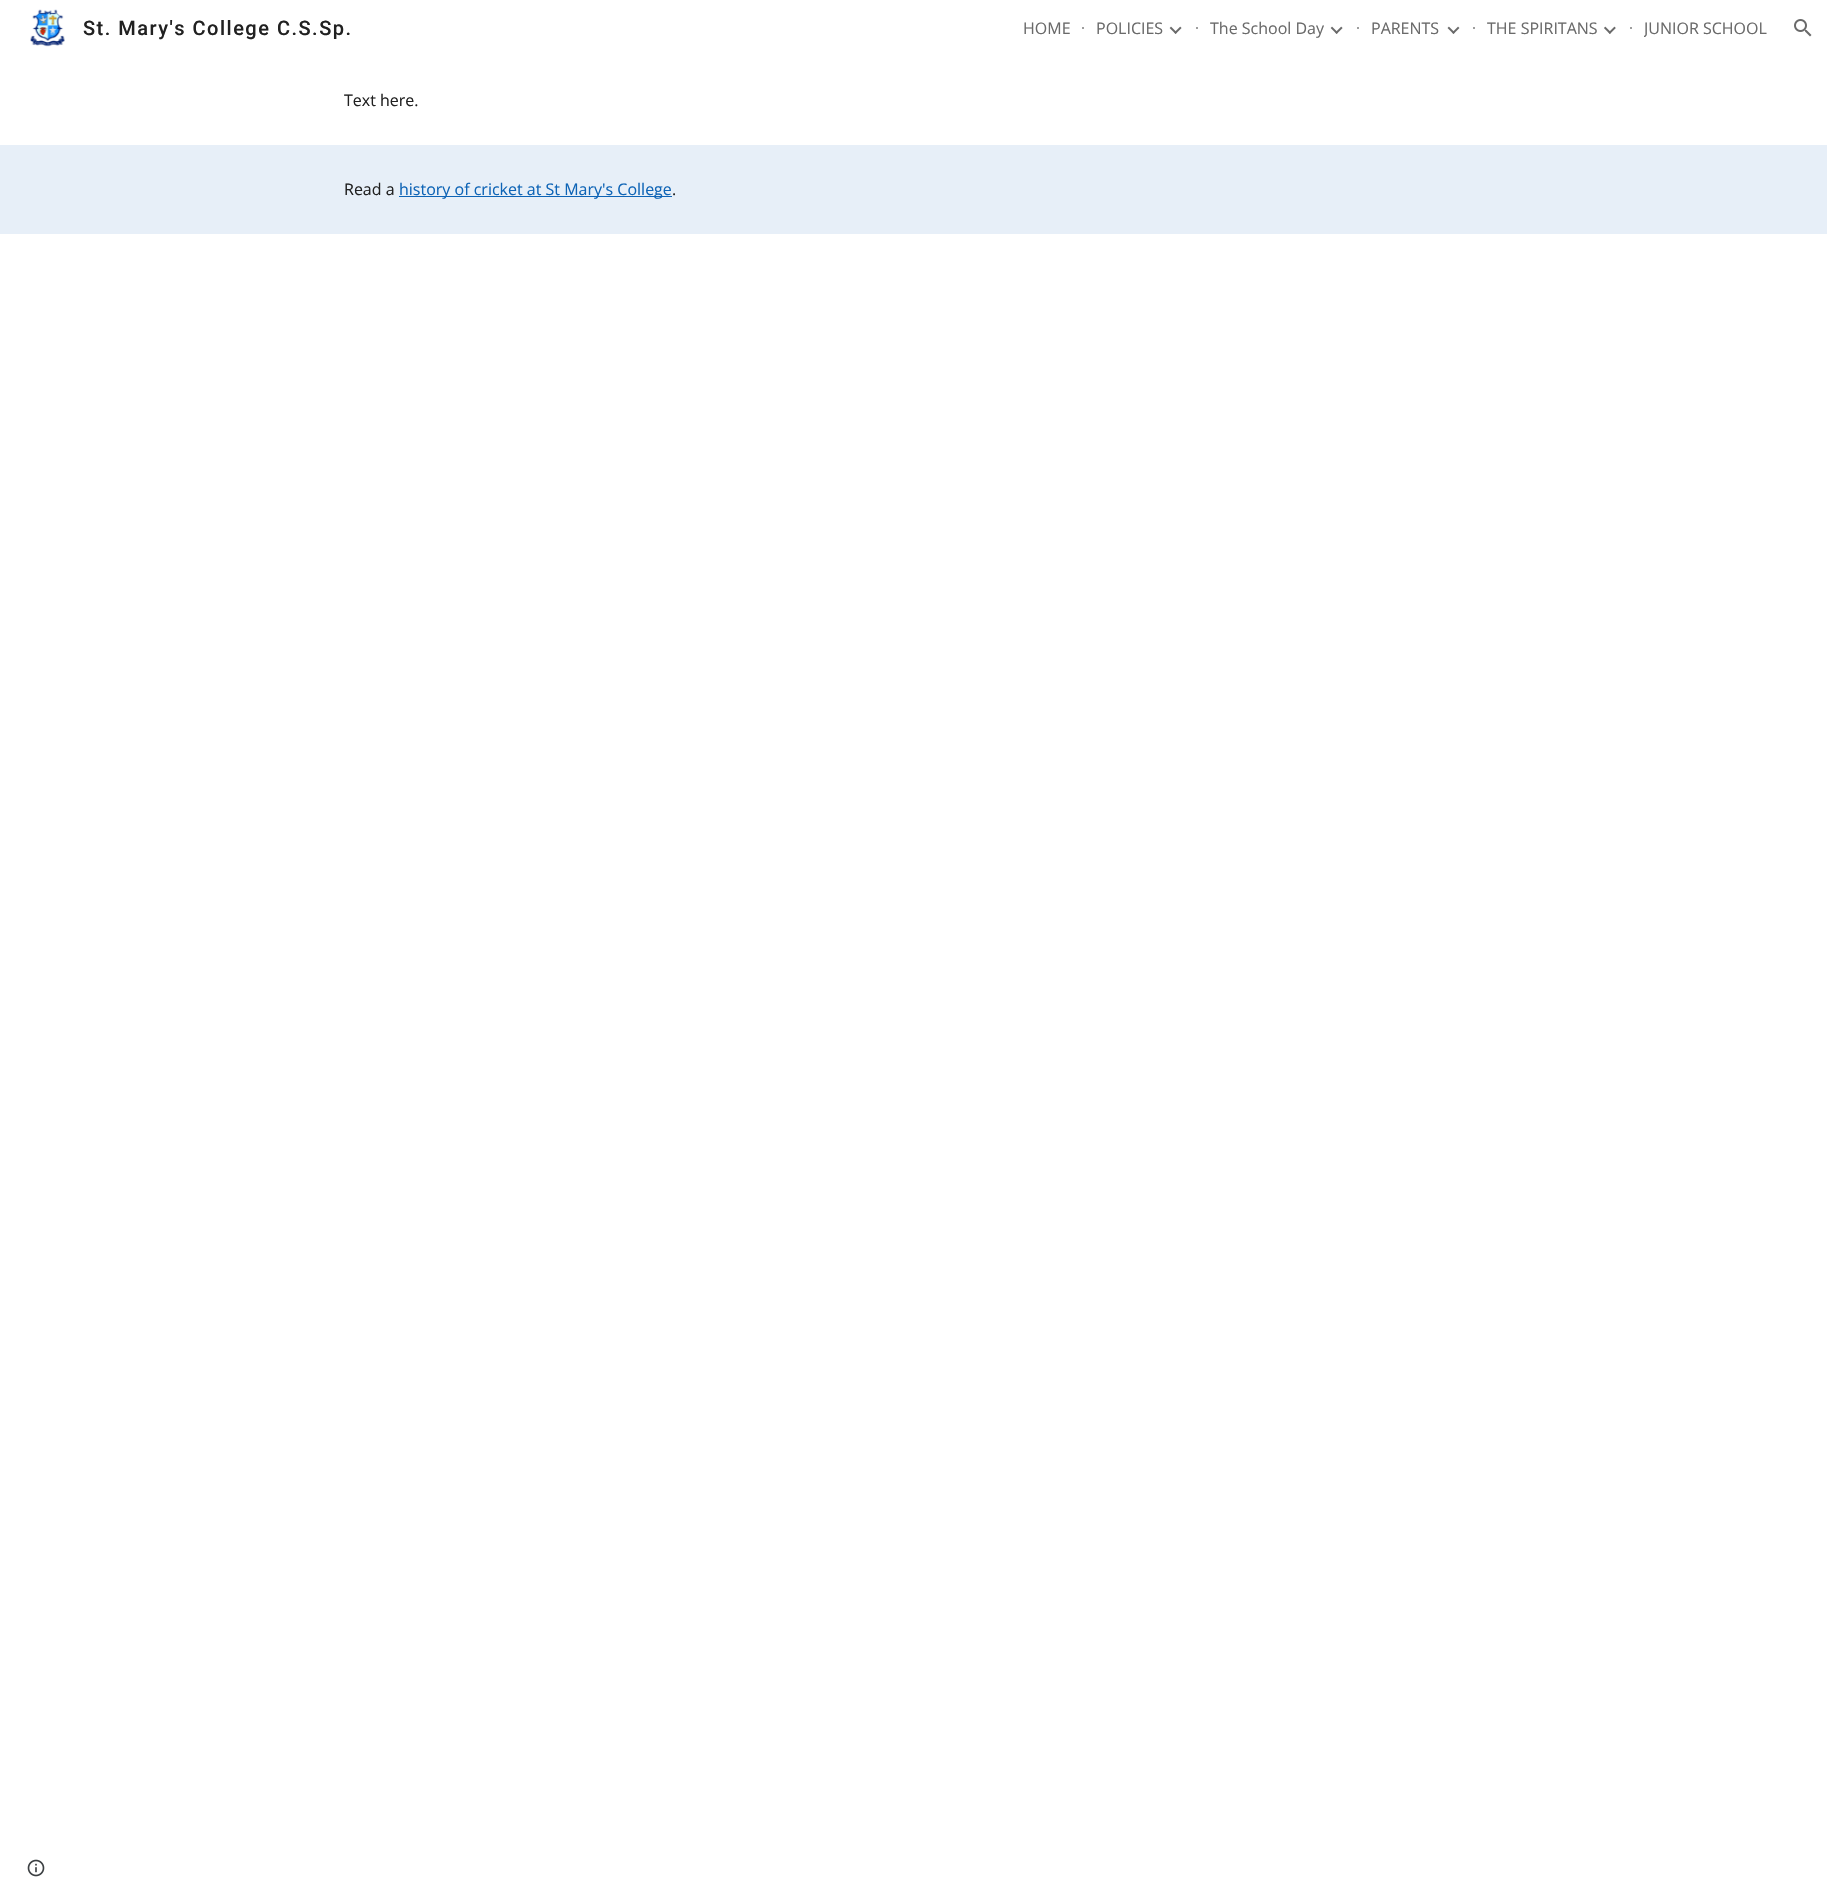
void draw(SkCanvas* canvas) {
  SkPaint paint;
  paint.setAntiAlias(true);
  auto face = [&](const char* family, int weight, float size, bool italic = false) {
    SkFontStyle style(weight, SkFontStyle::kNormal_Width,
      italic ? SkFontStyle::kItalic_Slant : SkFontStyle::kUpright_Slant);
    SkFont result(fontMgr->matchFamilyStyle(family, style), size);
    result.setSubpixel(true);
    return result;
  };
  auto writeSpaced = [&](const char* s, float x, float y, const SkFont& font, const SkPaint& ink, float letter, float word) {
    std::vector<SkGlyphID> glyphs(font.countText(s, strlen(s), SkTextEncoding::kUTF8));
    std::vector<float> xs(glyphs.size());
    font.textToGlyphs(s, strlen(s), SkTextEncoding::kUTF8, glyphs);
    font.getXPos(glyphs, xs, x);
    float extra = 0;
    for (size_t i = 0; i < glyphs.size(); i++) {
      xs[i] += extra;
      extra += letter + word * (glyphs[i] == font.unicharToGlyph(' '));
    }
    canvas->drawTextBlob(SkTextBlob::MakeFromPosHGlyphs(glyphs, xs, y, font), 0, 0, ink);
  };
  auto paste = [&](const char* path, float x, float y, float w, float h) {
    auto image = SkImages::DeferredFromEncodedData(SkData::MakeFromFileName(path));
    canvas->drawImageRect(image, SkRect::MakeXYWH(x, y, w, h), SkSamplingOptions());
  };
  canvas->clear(0xffffffff);
  paste("img/1.png", 30, 9, 35, 38);
  paint.setColor(0xff9e9e9e);
  canvas->drawRect(SkRect::MakeXYWH(1082, 27, 2, 2), paint);
  paste("img/2.png", 1169, 26, 13, 8);
  canvas->drawRect(SkRect::MakeXYWH(1196, 27, 2, 2), paint);
  paste("img/3.png", 1330, 26, 13, 8);
  canvas->drawRect(SkRect::MakeXYWH(1357, 27, 2, 2), paint);
  paste("img/4.png", 1447, 26, 13, 8);
  canvas->drawRect(SkRect::MakeXYWH(1473, 27, 2, 2), paint);
  paste("img/5.png", 1604, 26, 12, 8);
  canvas->drawRect(SkRect::MakeXYWH(1630, 27, 2, 2), paint);
  paste("img/6.png", 1794, 19, 18, 18);
  paint.setColor(0xffe7eff8);
  canvas->drawRect(SkRect::MakeXYWH(0, 145, 1827, 89), paint);
  paint.setColor(0xff0e64b6);
  canvas->drawRect(SkRect::MakeXYWH(399, 196, 273, 1), paint);
  paste("img/7.png", 27, 1859, 18, 18);
  auto f0 = face("Roboto", 500, 20);
  paint.setColor(0xff212121);
  writeSpaced("St. Mary's College C.S.Sp.", 83, 35, f0, paint, 1.5f, 0);
  auto f1 = face("Open Sans", 400, 16);
  paint.setColor(0xff6a6a6a);
  {
    const struct { const char* s; float x, y; } items[] = {
      {"HOME", 1023, 34},
      {"POLICIES", 1096, 34},
      {"The School Day", 1210, 34},
      {"PARENTS", 1371, 34},
      {"THE SPIRITANS", 1487, 34},
    };
    for (auto [s, x, y] : items) {
      canvas->drawString(s, x, y, f1, paint);
    }
  }
  canvas->save();
  canvas->clipRect(SkRect::MakeXYWH(1644, 17, 123, 22));
  canvas->drawString("JUNIOR SCHOOL", 1644, 34, f1, paint);
  canvas->restore();
  paint.setColor(0xff212121);
  canvas->drawString("Text here.", 344, 106, f1, paint);
  canvas->drawString("Read a", 344, 195, f1, paint);
  paint.setColor(0xff0e64b6);
  canvas->drawString("history of cricket at St Mary's College", 399, 195, f1, paint);
  paint.setColor(0xff212121);
  canvas->drawString(".", 672, 195, f1, paint);
}
